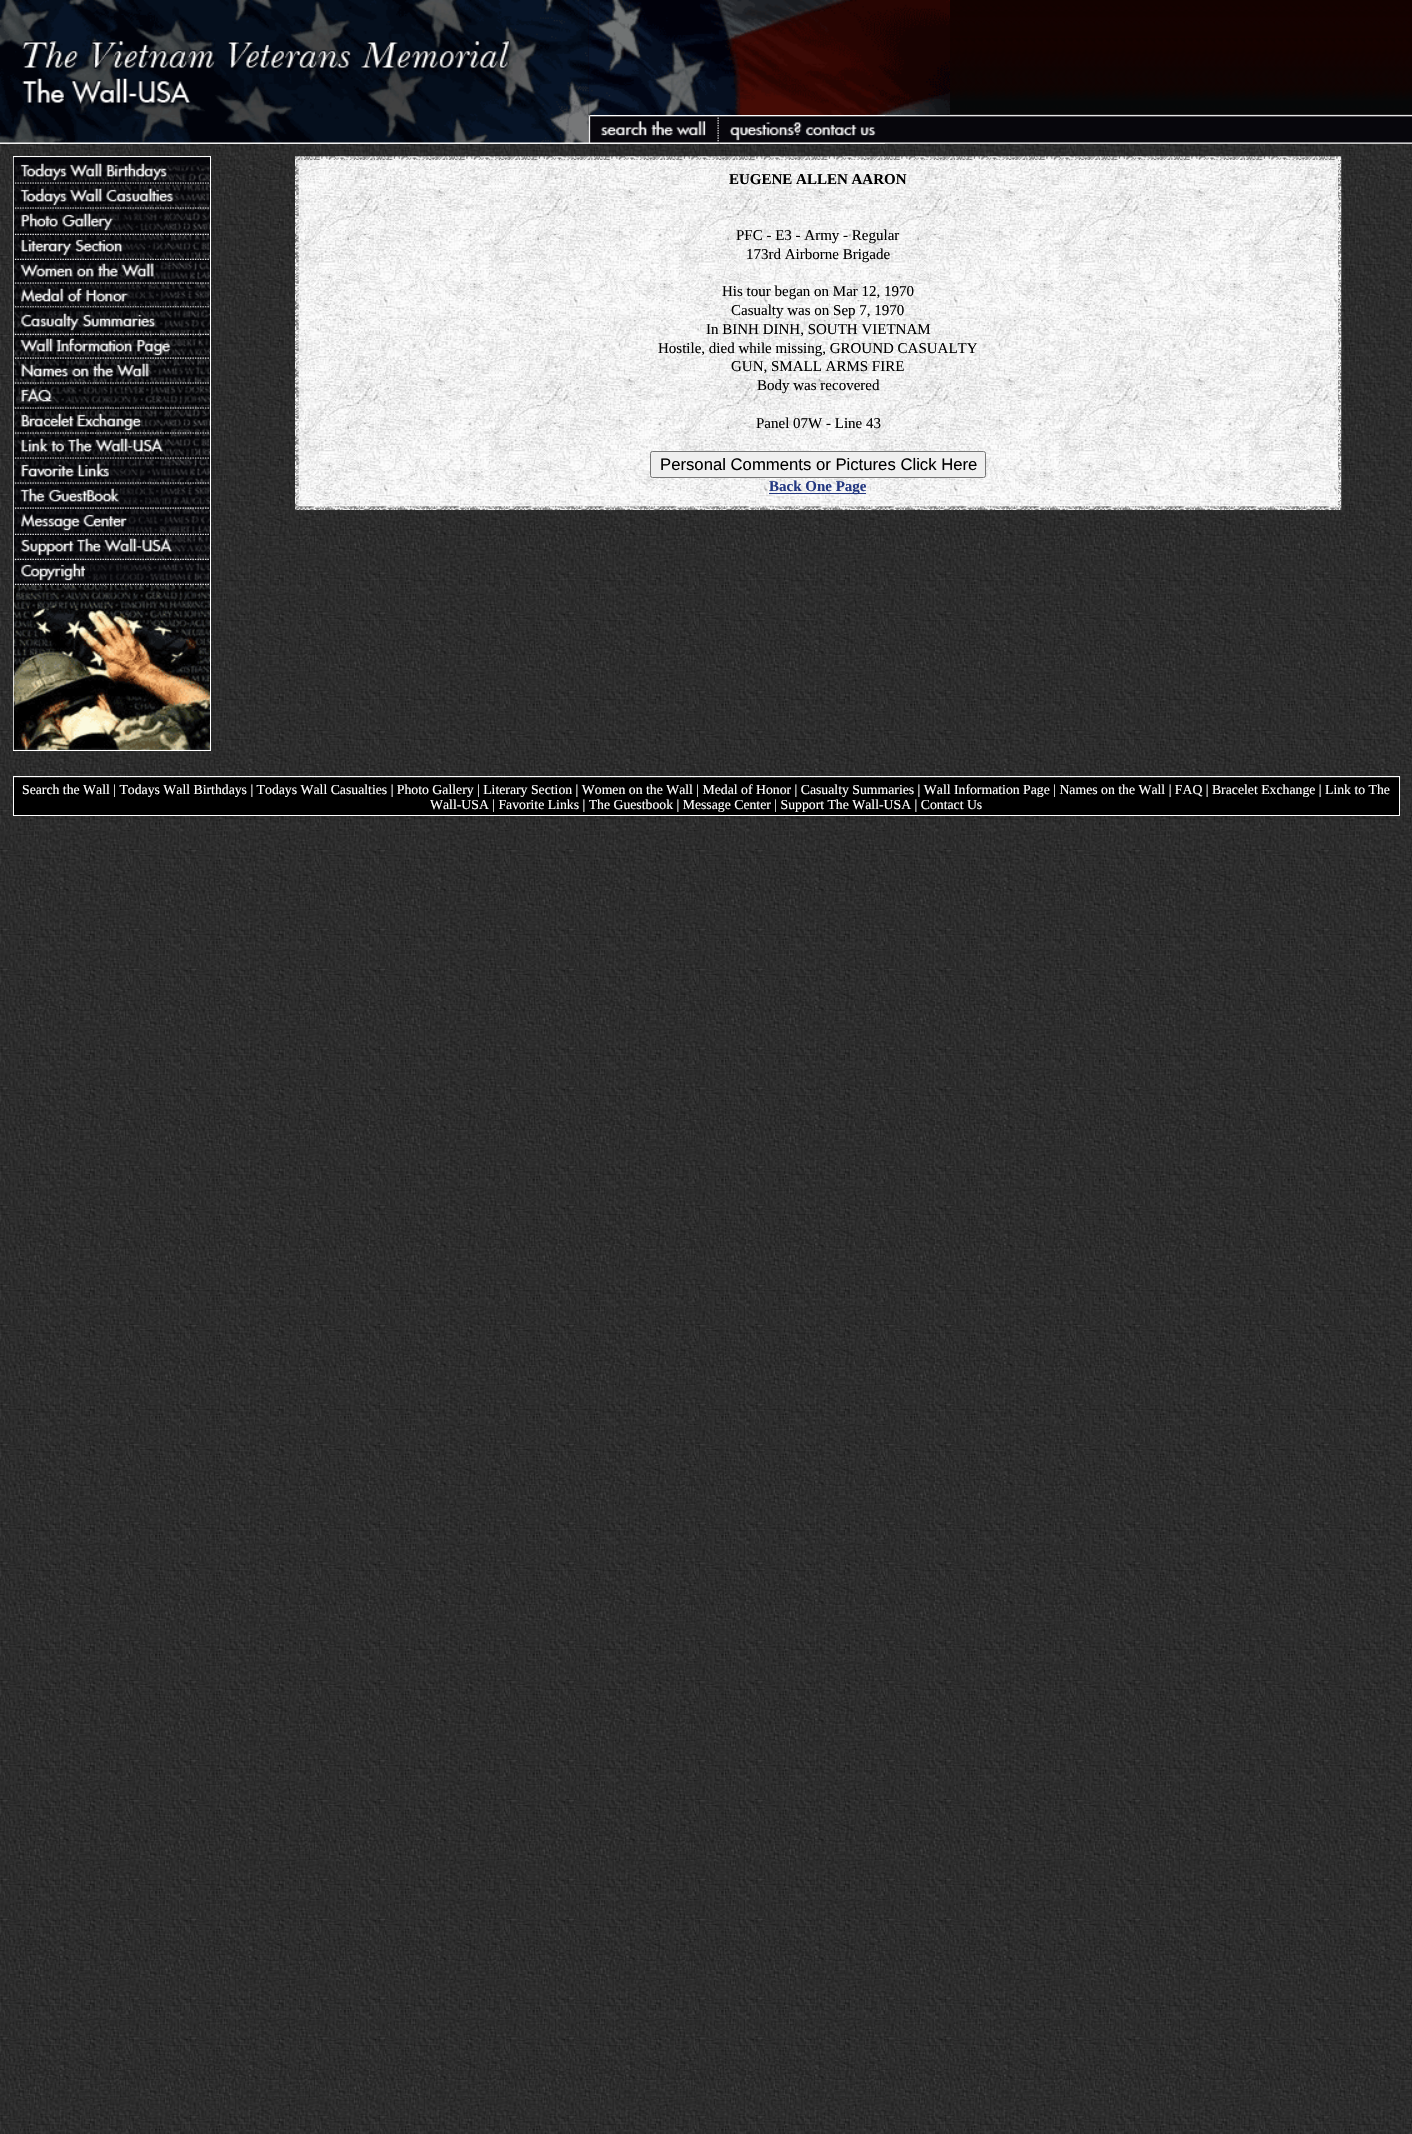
void draw(SkCanvas* canvas) {
  SkPaint paint;
  paint.setAntiAlias(true);
  auto face = [&](const char* family, int weight, float size, bool italic = false) {
    SkFontStyle style(weight, SkFontStyle::kNormal_Width,
      italic ? SkFontStyle::kItalic_Slant : SkFontStyle::kUpright_Slant);
    SkFont result(fontMgr->matchFamilyStyle(family, style), size);
    result.setSubpixel(true);
    return result;
  };
  auto paste = [&](const char* path, float x, float y, float w, float h) {
    auto image = SkImages::DeferredFromEncodedData(SkData::MakeFromFileName(path));
    canvas->drawImageRect(image, SkRect::MakeXYWH(x, y, w, h), SkSamplingOptions());
  };
  canvas->clear(0xffffffff);
  paste("img/1.png", 0, 143, 1412, 1991);
  paste("img/2.png", 0, 0, 1412, 144);
  paste("img/3.png", 0, 0, 589, 144);
  paste("img/4.png", 588, 0, 362, 115);
  paste("img/5.png", 588, 115, 131, 29);
  paste("img/6.png", 720, 115, 165, 29);
  paint.setStroke(true);
  paint.setStrokeWidth(1);
  paint.setColor(0xffffffff);
  canvas->drawRect(SkRect::MakeXYWH(13.5f, 156.5f, 197, 594), paint);
  paste("img/7.png", 13, 157, 197, 27);
  paste("img/8.png", 13, 183, 197, 26);
  paste("img/9.png", 13, 208, 197, 27);
  paste("img/10.png", 13, 235, 197, 25);
  paste("img/11.png", 13, 260, 197, 24);
  paste("img/12.png", 13, 283, 197, 25);
  paste("img/13.png", 13, 307, 197, 28);
  paste("img/14.png", 13, 335, 197, 23);
  paste("img/15.png", 13, 357, 197, 27);
  paste("img/16.png", 13, 383, 197, 26);
  paste("img/17.png", 13, 408, 197, 26);
  paste("img/18.png", 13, 433, 197, 26);
  paste("img/19.png", 13, 458, 197, 26);
  paste("img/20.png", 13, 483, 197, 25);
  paste("img/21.png", 13, 507, 197, 28);
  paste("img/22.png", 13, 535, 197, 25);
  paste("img/23.png", 13, 560, 197, 25);
  paste("img/24.png", 13, 585, 197, 165);
  paste("img/25.png", 295, 156, 1047, 354);
  paint.setStroke(false);
  paint.setColor(0xfff1f1f1);
  canvas->drawRect(SkRect::MakeXYWH(1337, 160, 1, 346), paint);
  paste("img/26.png", 298, 160, 1040, 347);
  paint.setColor(0xffefefef);
  canvas->drawRoundRect(SkRect::MakeXYWH(650.5f, 451.5f, 335, 26), 2, 2, paint);
  paint.setStroke(true);
  paint.setColor(0xff767676);
  canvas->drawRoundRect(SkRect::MakeXYWH(650.5f, 451.5f, 335, 26), 2, 2, paint);
  paint.setStroke(false);
  paint.setColor(0xff243881);
  canvas->drawRect(SkRect::MakeXYWH(769, 493, 97, 1), paint);
  paint.setStroke(true);
  paint.setColor(0xffffffff);
  canvas->drawRect(SkRect::MakeXYWH(13.5f, 776.5f, 1386, 39), paint);
  paint.setStroke(false);
  paint.setColor(0xff000000);
  canvas->drawRect(SkRect::MakeXYWH(14, 778, 1385, 37), paint);
  auto f0 = face("Liberation Serif", 700, 15);
  canvas->drawString("EUGENE ALLEN AARON", 729, 184, f0, paint);
  auto f1 = face("Liberation Serif", 400, 15);
  {
    const struct { const char* s; float x, y; } items[] = {
      {"PFC - E3 - Army - Regular", 736, 240},
      {"173rd Airborne Brigade", 746, 259},
      {"His tour began on Mar 12, 1970", 722, 296},
      {"Casualty was on Sep 7, 1970", 731, 315},
      {"In BINH DINH, SOUTH VIETNAM", 706, 334},
      {"Hostile, died while missing, GROUND CASUALTY", 658, 353},
      {"GUN, SMALL ARMS FIRE", 731, 371},
      {"Body was recovered", 757, 390},
      {"Panel 07W - Line 43", 756, 428},
    };
    for (auto [s, x, y] : items) {
      canvas->drawString(s, x, y, f1, paint);
    }
  }
  auto f2 = face("Liberation Sans", 400, 16.7f);
  canvas->drawString("Personal Comments or Pictures Click Here", 660, 470, f2, paint);
  paint.setColor(0xff243881);
  canvas->drawString("Back One Page", 769, 491, f0, paint);
  auto f3 = face("Liberation Serif", 400, 13.75f);
  paint.setColor(0xffffffff);
  canvas->drawString("Search the Wall | Todays Wall Birthdays | Todays Wall Casualties | Photo Gallery | Literary Section | Women on the Wall | Medal of Honor | Casualty Summaries | Wall Information Page | Names on the Wall | FAQ | Bracelet Exchange | Link to The", 22, 794, f3, paint);
  canvas->drawString("Wall-USA | Favorite Links | The Guestbook | Message Center | Support The Wall-USA | Contact Us", 430, 809, f3, paint);
}
